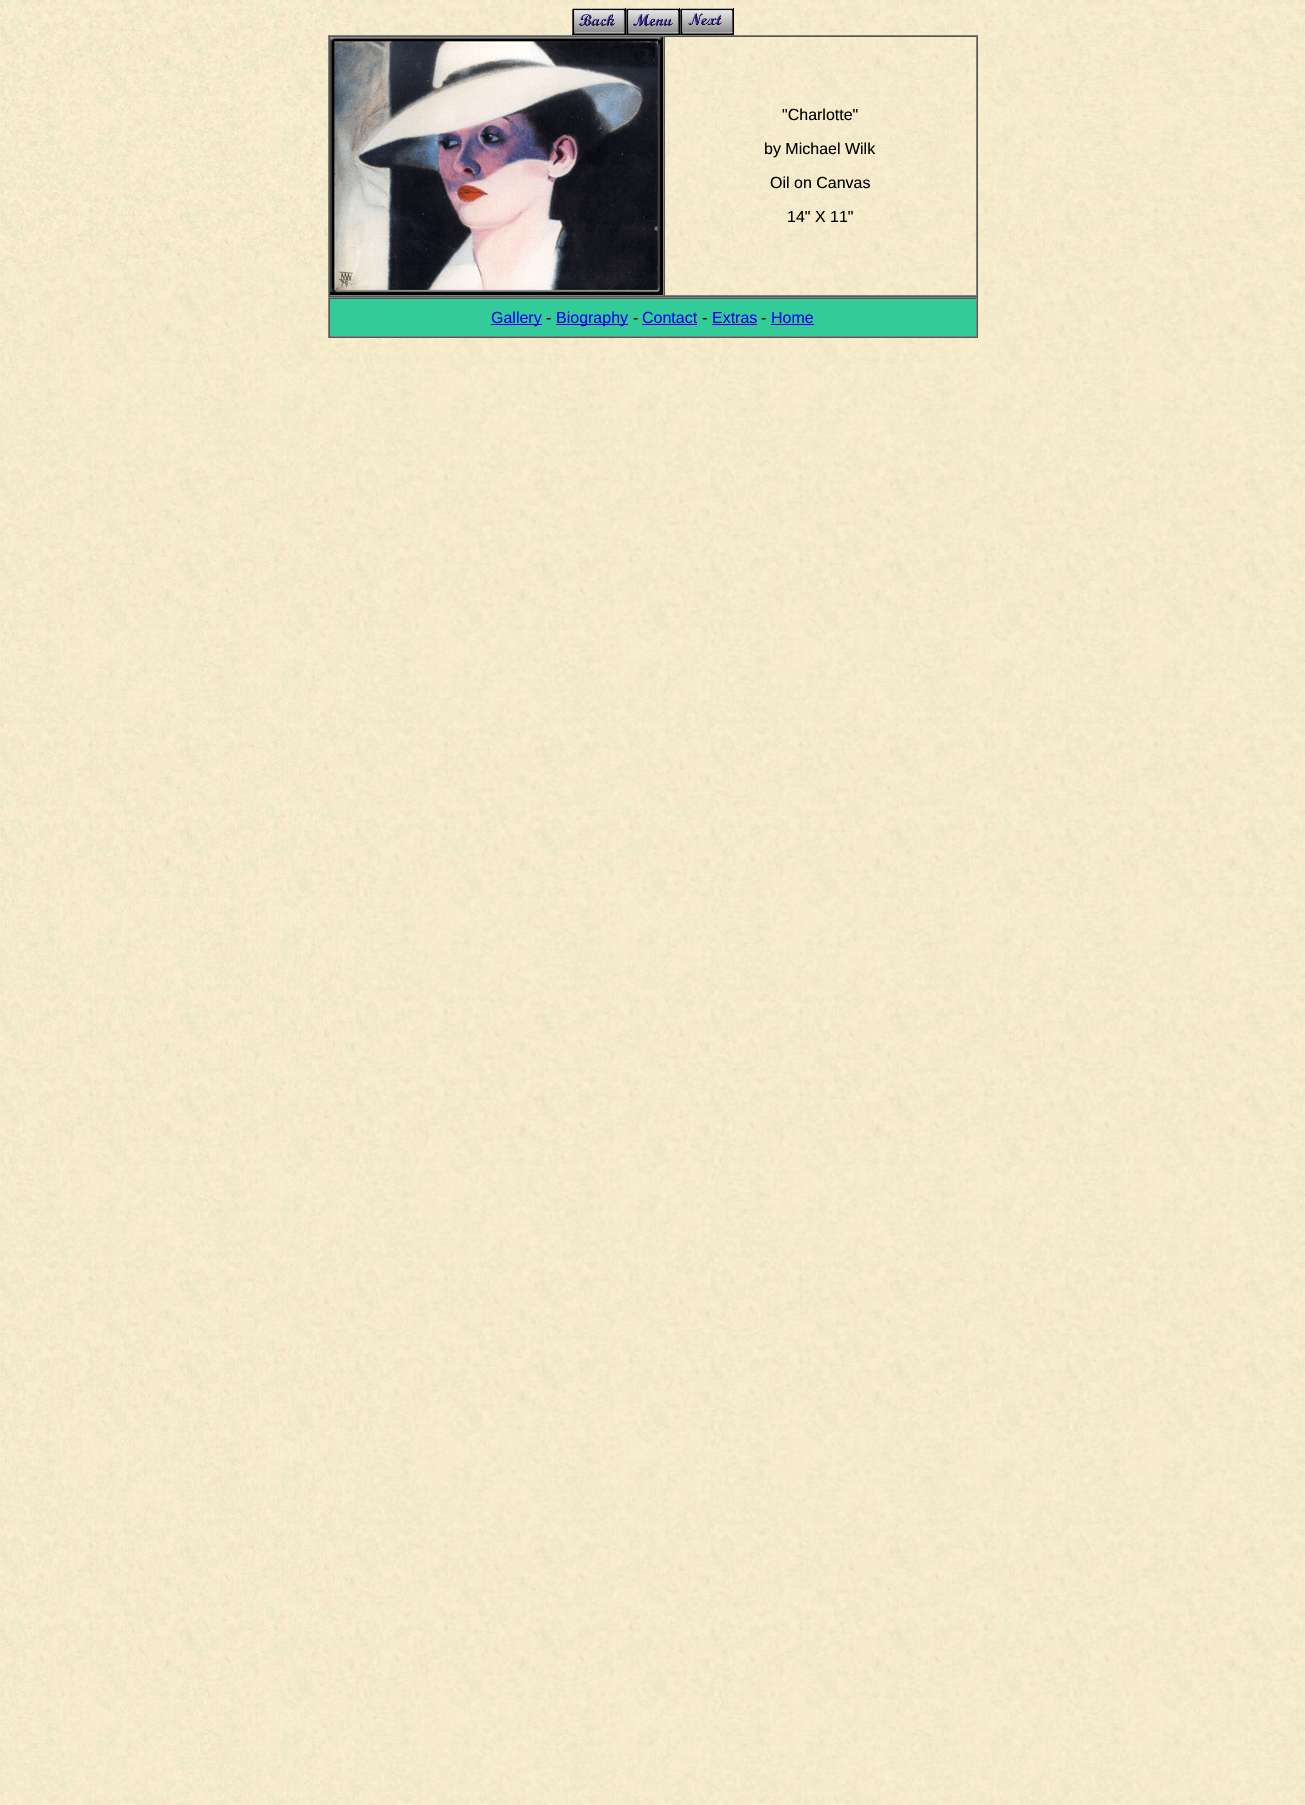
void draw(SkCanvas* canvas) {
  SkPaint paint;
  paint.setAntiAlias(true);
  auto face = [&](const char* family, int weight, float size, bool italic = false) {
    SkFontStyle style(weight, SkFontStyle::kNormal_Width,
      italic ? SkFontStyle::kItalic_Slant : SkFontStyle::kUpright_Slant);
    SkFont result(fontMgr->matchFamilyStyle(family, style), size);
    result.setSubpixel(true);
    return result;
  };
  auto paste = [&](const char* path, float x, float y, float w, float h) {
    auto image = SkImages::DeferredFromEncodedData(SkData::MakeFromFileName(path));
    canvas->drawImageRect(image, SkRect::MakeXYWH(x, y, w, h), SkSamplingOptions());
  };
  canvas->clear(0xffffffff);
  paste("img/1.png", 0, 0, 1305, 1805);
  paste("img/2.png", 572, 8, 54, 27);
  paste("img/3.png", 626, 8, 54, 27);
  paste("img/4.png", 680, 8, 54, 27);
  {
    const struct { float x, y, w, h; SkColor color; } items[] = {
      {328, 35, 650, 1, 0xff808080},
      {977, 35, 1, 262, 0xff555555},
      {328, 296, 650, 1, 0xff555555},
      {328, 35, 1, 262, 0xff808080},
      {329, 36, 648, 1, 0xff555555},
      {663, 36, 1, 260, 0xff808080},
      {329, 295, 335, 1, 0xff808080},
      {329, 36, 1, 260, 0xff555555},
    };
    for (auto [x, y, w, h, color] : items) {
      paint.setColor(color);
      canvas->drawRect(SkRect::MakeXYWH(x, y, w, h), paint);
    }
  }
  paste("img/5.png", 330, 37, 333, 258);
  {
    const struct { float x, y, w, h; SkColor color; } items[] = {
      {976, 36, 1, 260, 0xff808080},
      {664, 295, 313, 1, 0xff808080},
      {664, 36, 1, 260, 0xff555555},
      {328, 297, 650, 1, 0xff808080},
      {977, 297, 1, 41, 0xff555555},
      {328, 337, 650, 1, 0xff555555},
      {328, 297, 1, 41, 0xff808080},
      {330, 299, 646, 37, 0xff33cc99},
      {329, 298, 648, 1, 0xff555555},
      {976, 298, 1, 39, 0xff808080},
      {329, 336, 648, 1, 0xff808080},
      {329, 298, 1, 39, 0xff555555},
      {491, 324, 51, 1, 0xff0000ee},
      {556, 324, 72, 1, 0xff0000ee},
      {642, 324, 55, 1, 0xff0000ee},
      {712, 324, 45, 1, 0xff0000ee},
      {771, 324, 43, 1, 0xff0000ee},
    };
    for (auto [x, y, w, h, color] : items) {
      paint.setColor(color);
      canvas->drawRect(SkRect::MakeXYWH(x, y, w, h), paint);
    }
  }
  auto f0 = face("Liberation Sans", 400, 16);
  paint.setColor(0xff000000);
  {
    const struct { const char* s; float x, y; } items[] = {
      {"\"Charlotte\"", 782, 120},
      {"by Michael Wilk", 764, 154},
      {"Oil on Canvas", 770, 188},
      {"14\" X 11\"", 787, 222},
    };
    for (auto [s, x, y] : items) {
      canvas->drawString(s, x, y, f0, paint);
    }
  }
  paint.setColor(0xff0000ee);
  canvas->drawString("Gallery", 491, 323, f0, paint);
  paint.setColor(0xff000000);
  canvas->drawString("-", 546, 323, f0, paint);
  paint.setColor(0xff0000ee);
  canvas->drawString("Biography", 556, 323, f0, paint);
  paint.setColor(0xff000000);
  canvas->drawString("-", 633, 323, f0, paint);
  paint.setColor(0xff0000ee);
  canvas->drawString("Contact", 642, 323, f0, paint);
  paint.setColor(0xff000000);
  canvas->drawString("-", 702, 323, f0, paint);
  paint.setColor(0xff0000ee);
  canvas->drawString("Extras", 712, 323, f0, paint);
  paint.setColor(0xff000000);
  canvas->drawString("-", 761, 323, f0, paint);
  paint.setColor(0xff0000ee);
  canvas->drawString("Home", 771, 323, f0, paint);
}
